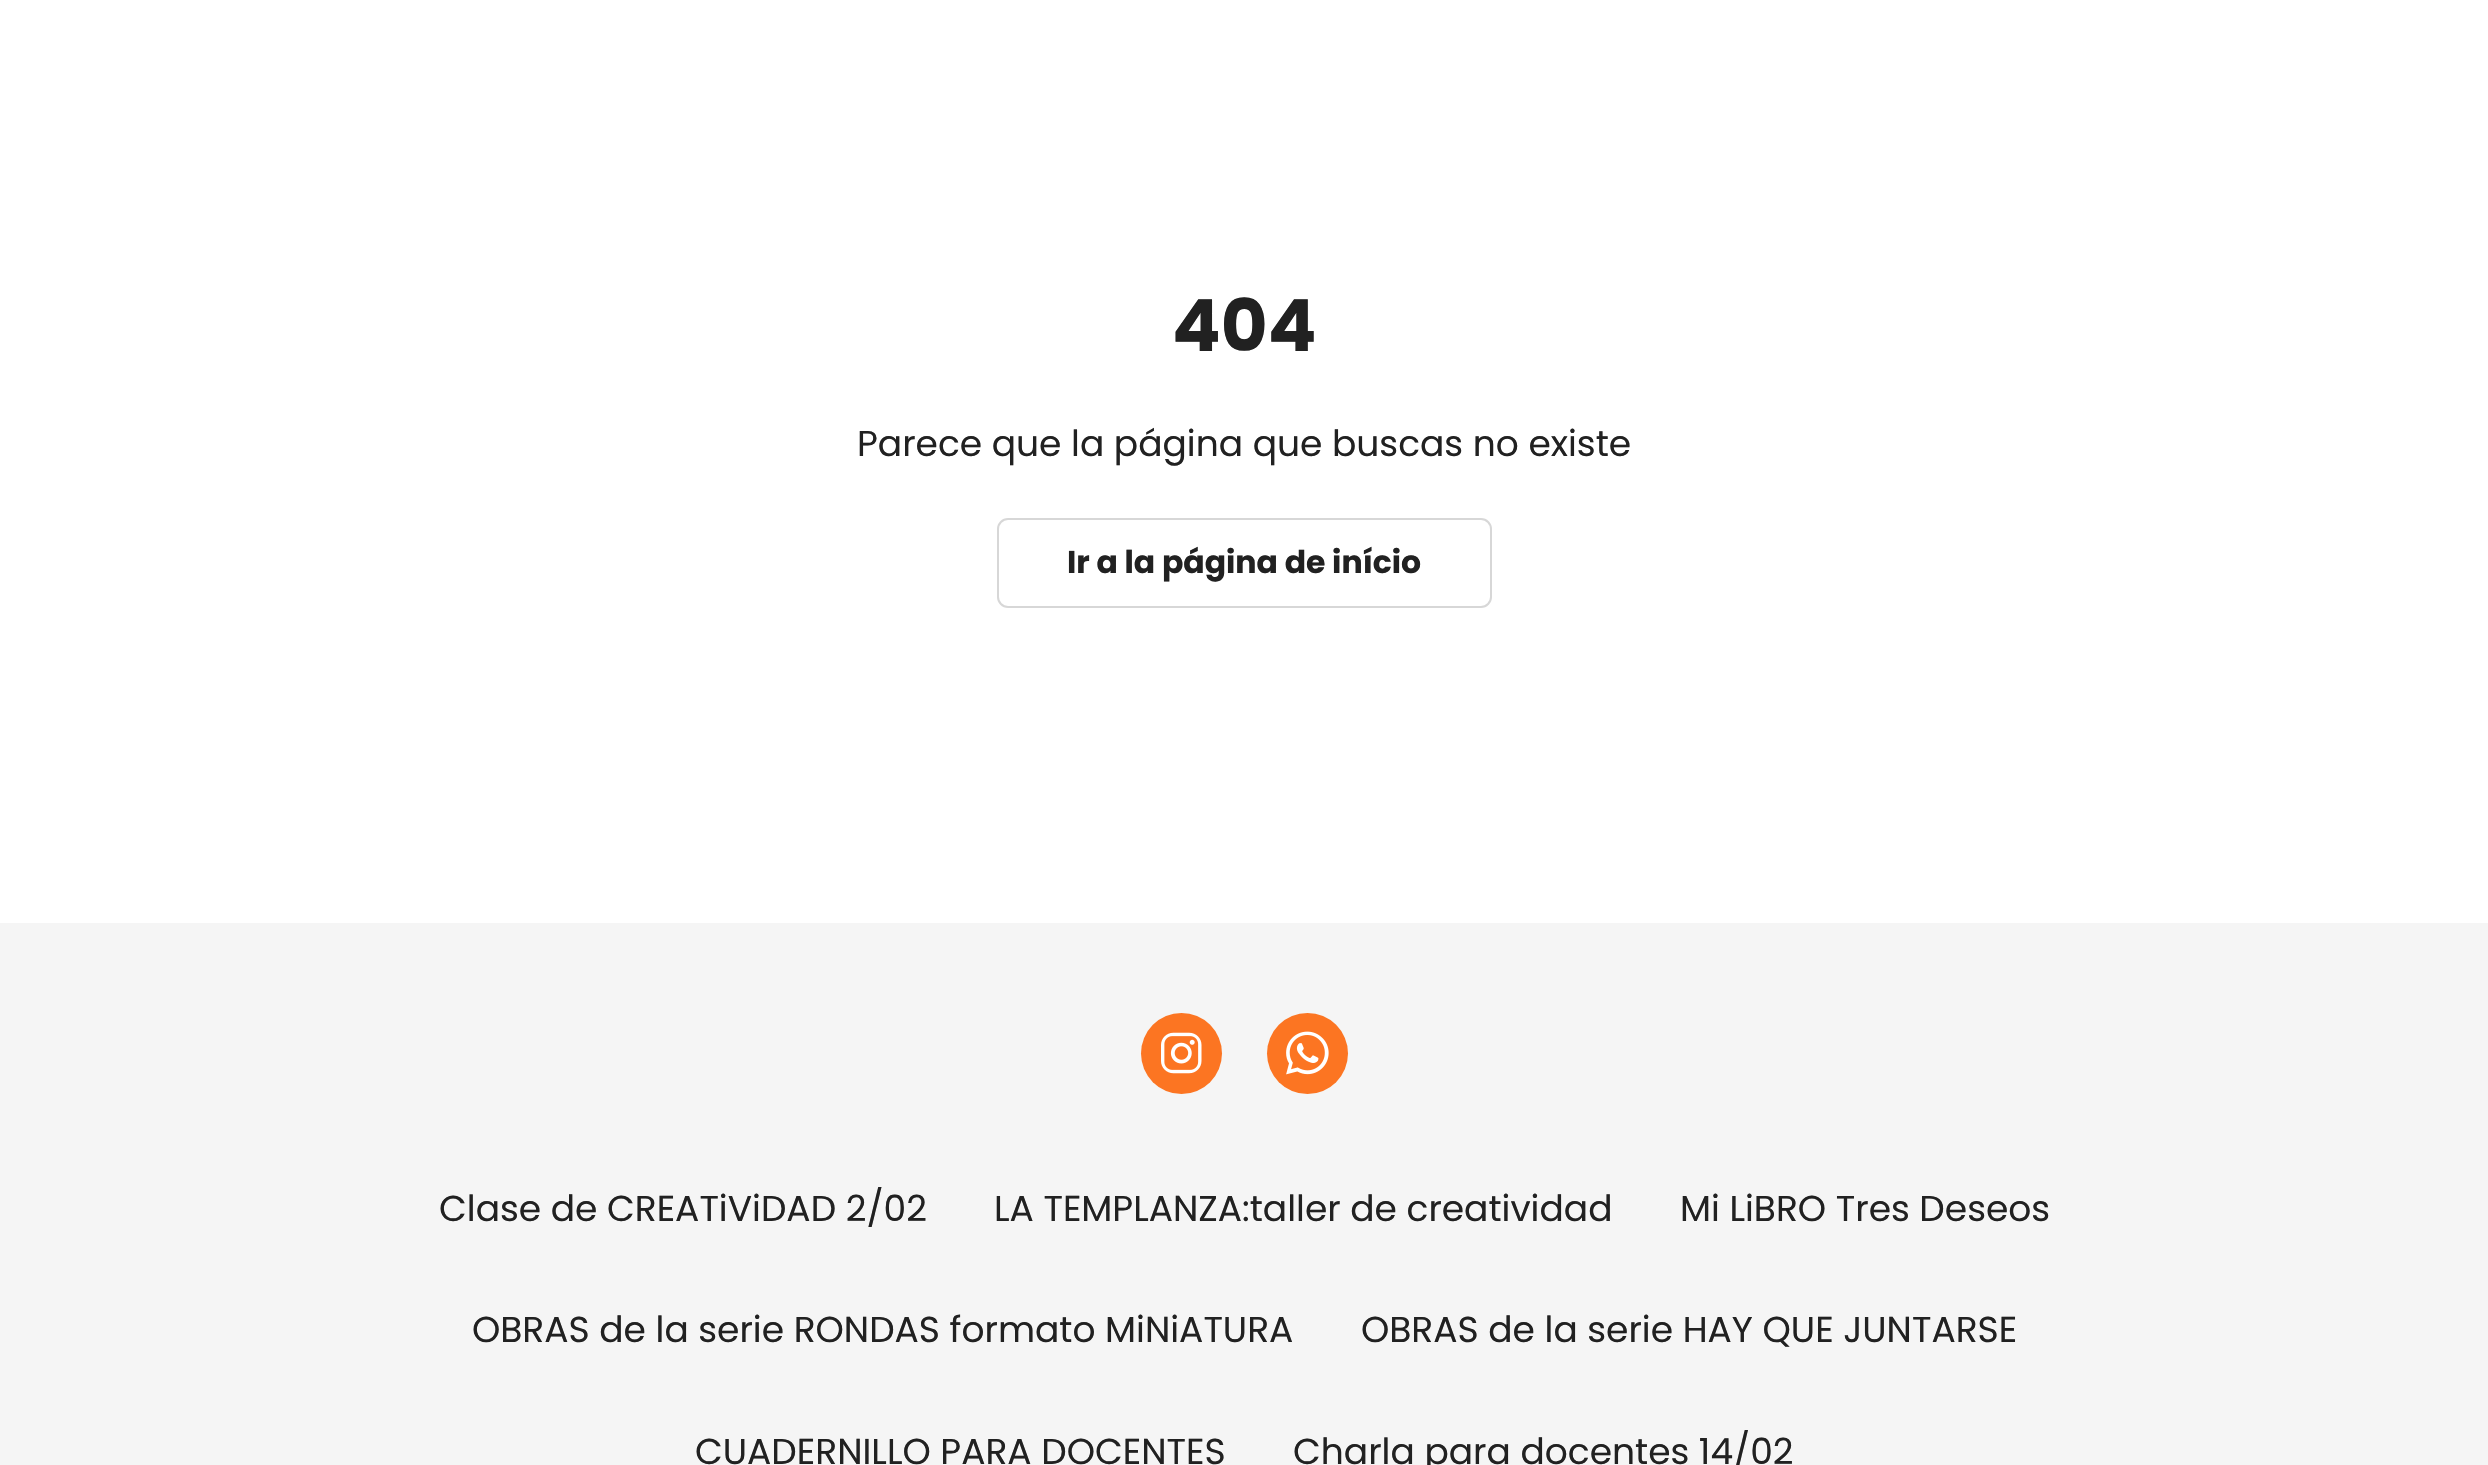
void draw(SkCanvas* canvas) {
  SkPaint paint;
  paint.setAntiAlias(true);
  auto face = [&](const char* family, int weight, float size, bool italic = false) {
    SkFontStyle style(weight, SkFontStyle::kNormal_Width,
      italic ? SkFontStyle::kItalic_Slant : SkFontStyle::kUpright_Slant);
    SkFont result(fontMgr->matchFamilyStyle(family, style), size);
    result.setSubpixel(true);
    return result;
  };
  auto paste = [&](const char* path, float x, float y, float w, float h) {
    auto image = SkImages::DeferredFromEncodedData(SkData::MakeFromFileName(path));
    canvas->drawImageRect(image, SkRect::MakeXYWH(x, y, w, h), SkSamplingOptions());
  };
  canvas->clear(0xffffffff);
  paint.setStroke(true);
  paint.setStrokeWidth(2);
  paint.setColor(0xffd7d7d7);
  canvas->drawRoundRect(SkRect::MakeXYWH(998, 519, 493, 88), 10, 10, paint);
  paint.setStroke(false);
  paint.setColor(0xfff5f5f5);
  canvas->drawRect(SkRect::MakeXYWH(0, 923, 2488, 542), paint);
  paint.setColor(0xfffc7522);
  canvas->drawCircle(1181.5f, 1053.5f, 40.5f, paint);
  paste("img/1.png", 1161, 1032, 41, 42);
  canvas->drawCircle(1307.5f, 1053.5f, 40.5f, paint);
  paste("img/2.png", 1286, 1031, 43, 44);
  auto f0 = face("Poppins", 700, 72);
  paint.setColor(0xff212121);
  canvas->drawString("404", 1172, 351, f0, paint);
  auto f1 = face("Poppins", 400, 36);
  canvas->drawString("Parece que la página que buscas no existe", 857, 456, f1, paint);
  auto f2 = face("Poppins", 700, 31.5f);
  canvas->drawString("Ir a la página de início", 1067, 573, f2, paint);
  {
    const struct { const char* s; float x, y; } items[] = {
      {"Clase de CREATiViDAD 2/02", 439, 1221},
      {"LA TEMPLANZA:taller de creatividad", 994, 1221},
      {"Mi LiBRO Tres Deseos", 1680, 1221},
      {"OBRAS de la serie RONDAS formato MiNiATURA", 472, 1342},
      {"OBRAS de la serie HAY QUE JUNTARSE", 1361, 1342},
      {"CUADERNILLO PARA DOCENTES", 695, 1464},
      {"Charla para docentes 14/02", 1293, 1464},
    };
    for (auto [s, x, y] : items) {
      canvas->drawString(s, x, y, f1, paint);
    }
  }
}
